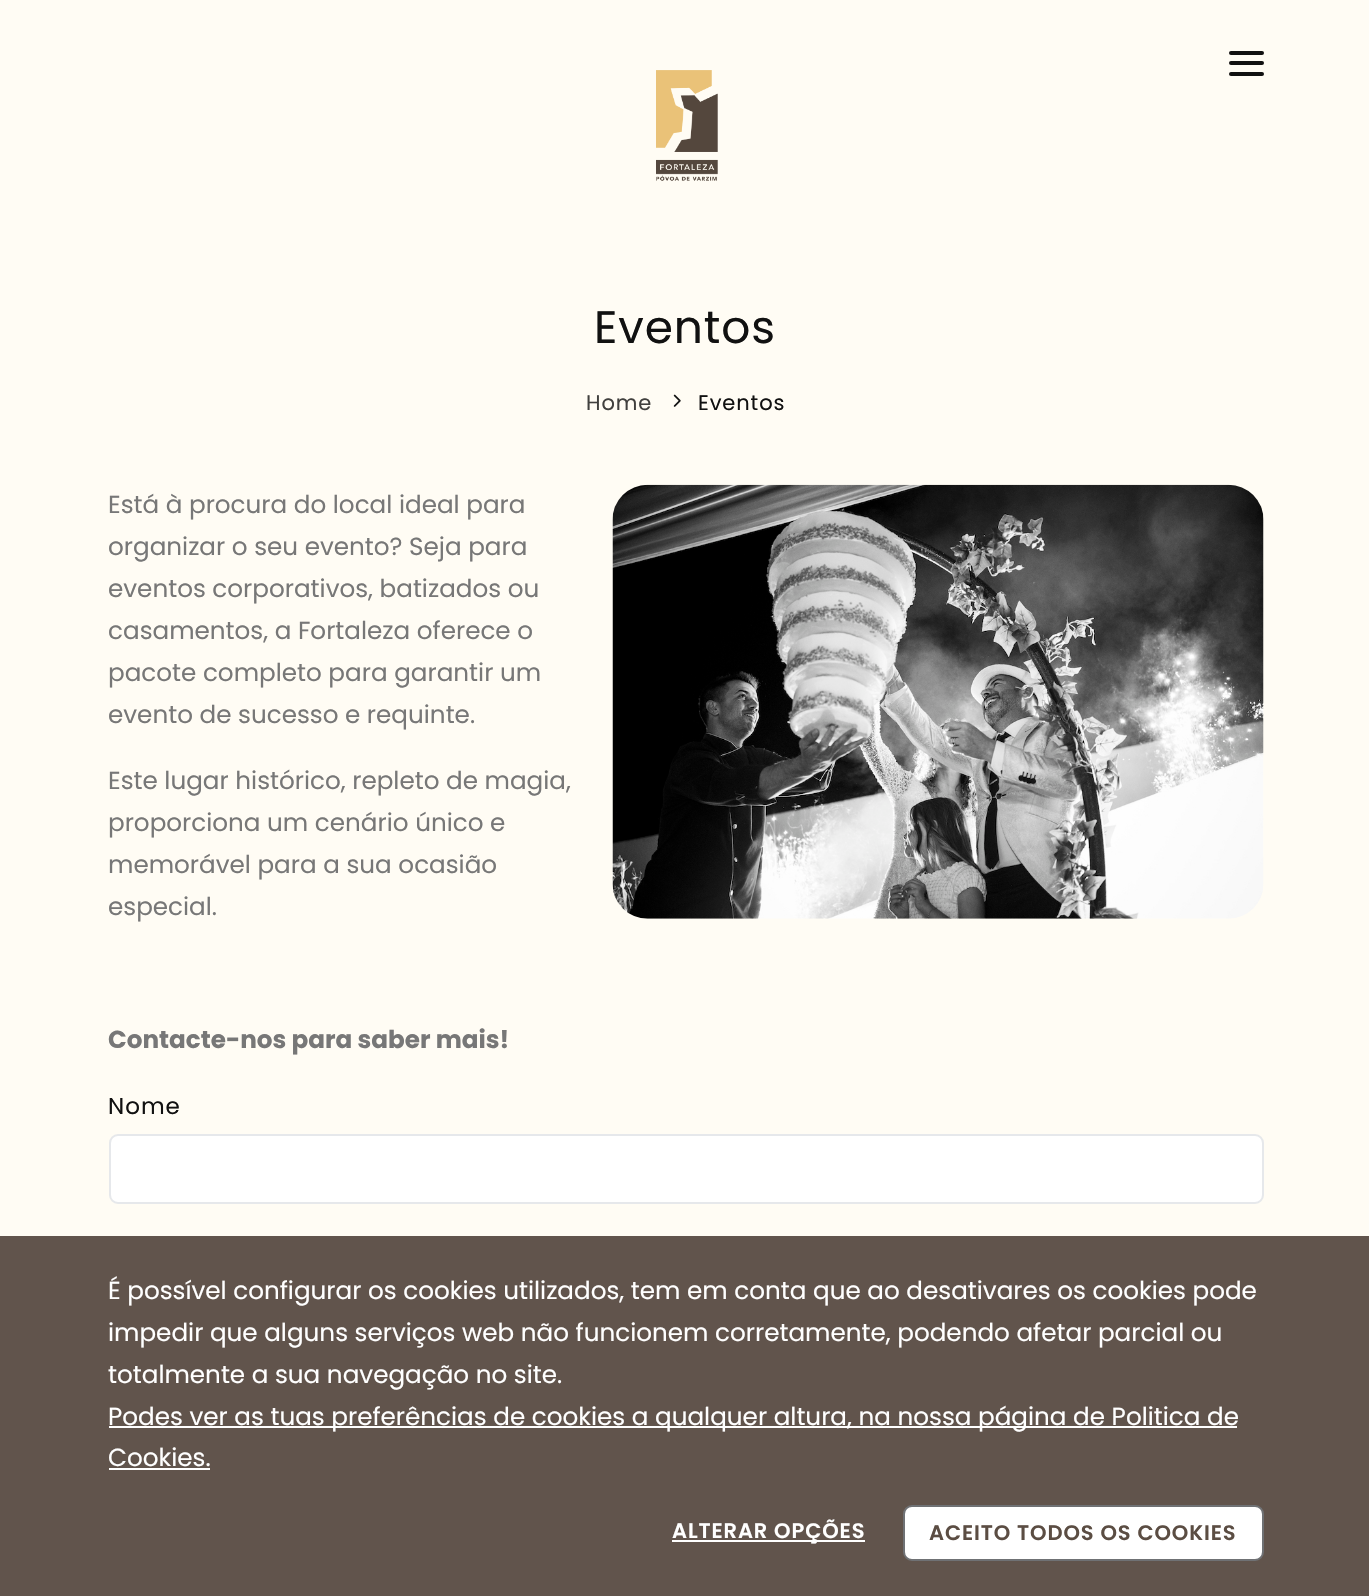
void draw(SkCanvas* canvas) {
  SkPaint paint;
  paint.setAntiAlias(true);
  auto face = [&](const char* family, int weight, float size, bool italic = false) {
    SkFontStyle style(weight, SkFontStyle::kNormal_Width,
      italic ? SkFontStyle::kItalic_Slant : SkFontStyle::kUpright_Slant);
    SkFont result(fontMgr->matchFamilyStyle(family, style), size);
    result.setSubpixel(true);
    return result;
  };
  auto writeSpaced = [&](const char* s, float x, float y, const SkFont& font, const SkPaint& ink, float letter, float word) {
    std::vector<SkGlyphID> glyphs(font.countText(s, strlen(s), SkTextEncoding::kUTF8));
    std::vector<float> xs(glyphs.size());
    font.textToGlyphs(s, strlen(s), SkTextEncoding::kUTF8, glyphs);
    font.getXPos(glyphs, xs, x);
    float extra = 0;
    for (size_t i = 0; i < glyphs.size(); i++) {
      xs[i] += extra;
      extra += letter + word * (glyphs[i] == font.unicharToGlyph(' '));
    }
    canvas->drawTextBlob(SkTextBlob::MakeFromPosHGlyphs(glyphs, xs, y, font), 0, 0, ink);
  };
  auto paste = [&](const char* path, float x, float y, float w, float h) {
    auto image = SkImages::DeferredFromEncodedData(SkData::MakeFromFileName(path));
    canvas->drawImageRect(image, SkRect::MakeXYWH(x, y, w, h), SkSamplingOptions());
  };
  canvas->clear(0xfffffcf4);
  paint.setColor(0xff111111);
  canvas->drawRoundRect(SkRect::MakeXYWH(1229, 61, 35, 4), 2, 2, paint);
  canvas->drawRoundRect(SkRect::MakeXYWH(1229, 51, 35, 4), 2, 2, paint);
  canvas->drawRoundRect(SkRect::MakeXYWH(1229, 72, 35, 4), 2, 2, paint);
  paste("img/1.png", 656, 70, 62, 111);
  paste("img/2.png", 673, 394, 8, 13);
  paint.setColor(0xff61544c);
  canvas->drawRect(SkRect::MakeXYWH(0, 1236, 1369, 360), paint);
  paste("img/3.png", 612, 484, 652, 435);
  paint.setColor(0xffffffff);
  canvas->drawRoundRect(SkRect::MakeXYWH(110, 1135, 1153, 68), 8, 8, paint);
  paint.setStroke(true);
  paint.setStrokeWidth(2);
  paint.setColor(0xffe6e8eb);
  canvas->drawRoundRect(SkRect::MakeXYWH(110, 1135, 1153, 68), 8, 8, paint);
  paint.setStroke(false);
  {
    const struct { float x, y, w, h; SkColor color; } items[] = {
      {109, 1426, 1128, 2, 0xffffffff},
      {109, 1468, 101, 2, 0xffffffff},
      {672, 1540, 193, 2, 0xffffffff},
    };
    for (auto [x, y, w, h, color] : items) {
      paint.setColor(color);
      canvas->drawRect(SkRect::MakeXYWH(x, y, w, h), paint);
    }
  }
  canvas->drawRoundRect(SkRect::MakeXYWH(904, 1506, 359, 54), 8, 8, paint);
  paint.setStroke(true);
  paint.setColor(0xff6f7174);
  canvas->drawRoundRect(SkRect::MakeXYWH(904, 1506, 359, 54), 8, 8, paint);
  auto f0 = face("Poppins", 400, 45.5f);
  paint.setStroke(false);
  paint.setColor(0xff111111);
  writeSpaced("Eventos", 594, 343, f0, paint, 0.9f, 0);
  auto f1 = face("Poppins", 400, 21);
  paint.setColor(0xff41403e);
  writeSpaced("Home", 586, 410, f1, paint, 0.9f, 0);
  paint.setColor(0xff111111);
  writeSpaced("Eventos", 698, 410, f1, paint, 0.9f, 0);
  auto f2 = face("Poppins", 400, 24.65f);
  paint.setColor(0xff777777);
  {
    const struct { const char* s; float x, y; } items[] = {
      {"Está à procura do local ideal para", 108, 513},
      {"organizar o seu evento? Seja para", 108, 555},
      {"eventos corporativos, batizados ou", 108, 597},
      {"casamentos, a Fortaleza oferece o", 108, 639},
      {"pacote completo para garantir um", 108, 681},
      {"evento de sucesso e requinte.", 108, 723},
      {"Este lugar histórico, repleto de magia,", 108, 789},
      {"proporciona um cenário único e", 108, 831},
      {"memorável para a sua ocasião", 108, 873},
      {"especial.", 108, 915},
    };
    for (auto [s, x, y] : items) {
      canvas->drawString(s, x, y, f2, paint);
    }
  }
  auto f3 = face("Poppins", 700, 24.65f);
  canvas->drawString("Contacte-nos para saber mais!", 108, 1048, f3, paint);
  auto f4 = face("Poppins", 400, 23);
  paint.setColor(0xff111111);
  writeSpaced("Nome", 108, 1114, f4, paint, 1, 0);
  paint.setColor(0xffffffff);
  {
    const struct { const char* s; float x, y; } items[] = {
      {"É possível configurar os cookies utilizados, tem em conta que ao desativares os cookies pode", 108, 1299},
      {"impedir que alguns serviços web não funcionem corretamente, podendo afetar parcial ou", 108, 1341},
      {"totalmente a sua navegação no site.", 108, 1383},
      {"Podes ver as tuas preferências de cookies a qualquer altura, na nossa página de Politica de", 108, 1425},
      {"Cookies.", 108, 1466},
    };
    for (auto [s, x, y] : items) {
      canvas->drawString(s, x, y, f2, paint);
    }
  }
  auto f5 = face("Poppins", 600, 21);
  writeSpaced("ALTERAR OPÇÕES", 672, 1538, f5, paint, 0.9f, 0);
  paint.setColor(0xff5b4d43);
  writeSpaced("ACEITO TODOS OS COOKIES", 929, 1540, f5, paint, 0.9f, 0);
}
